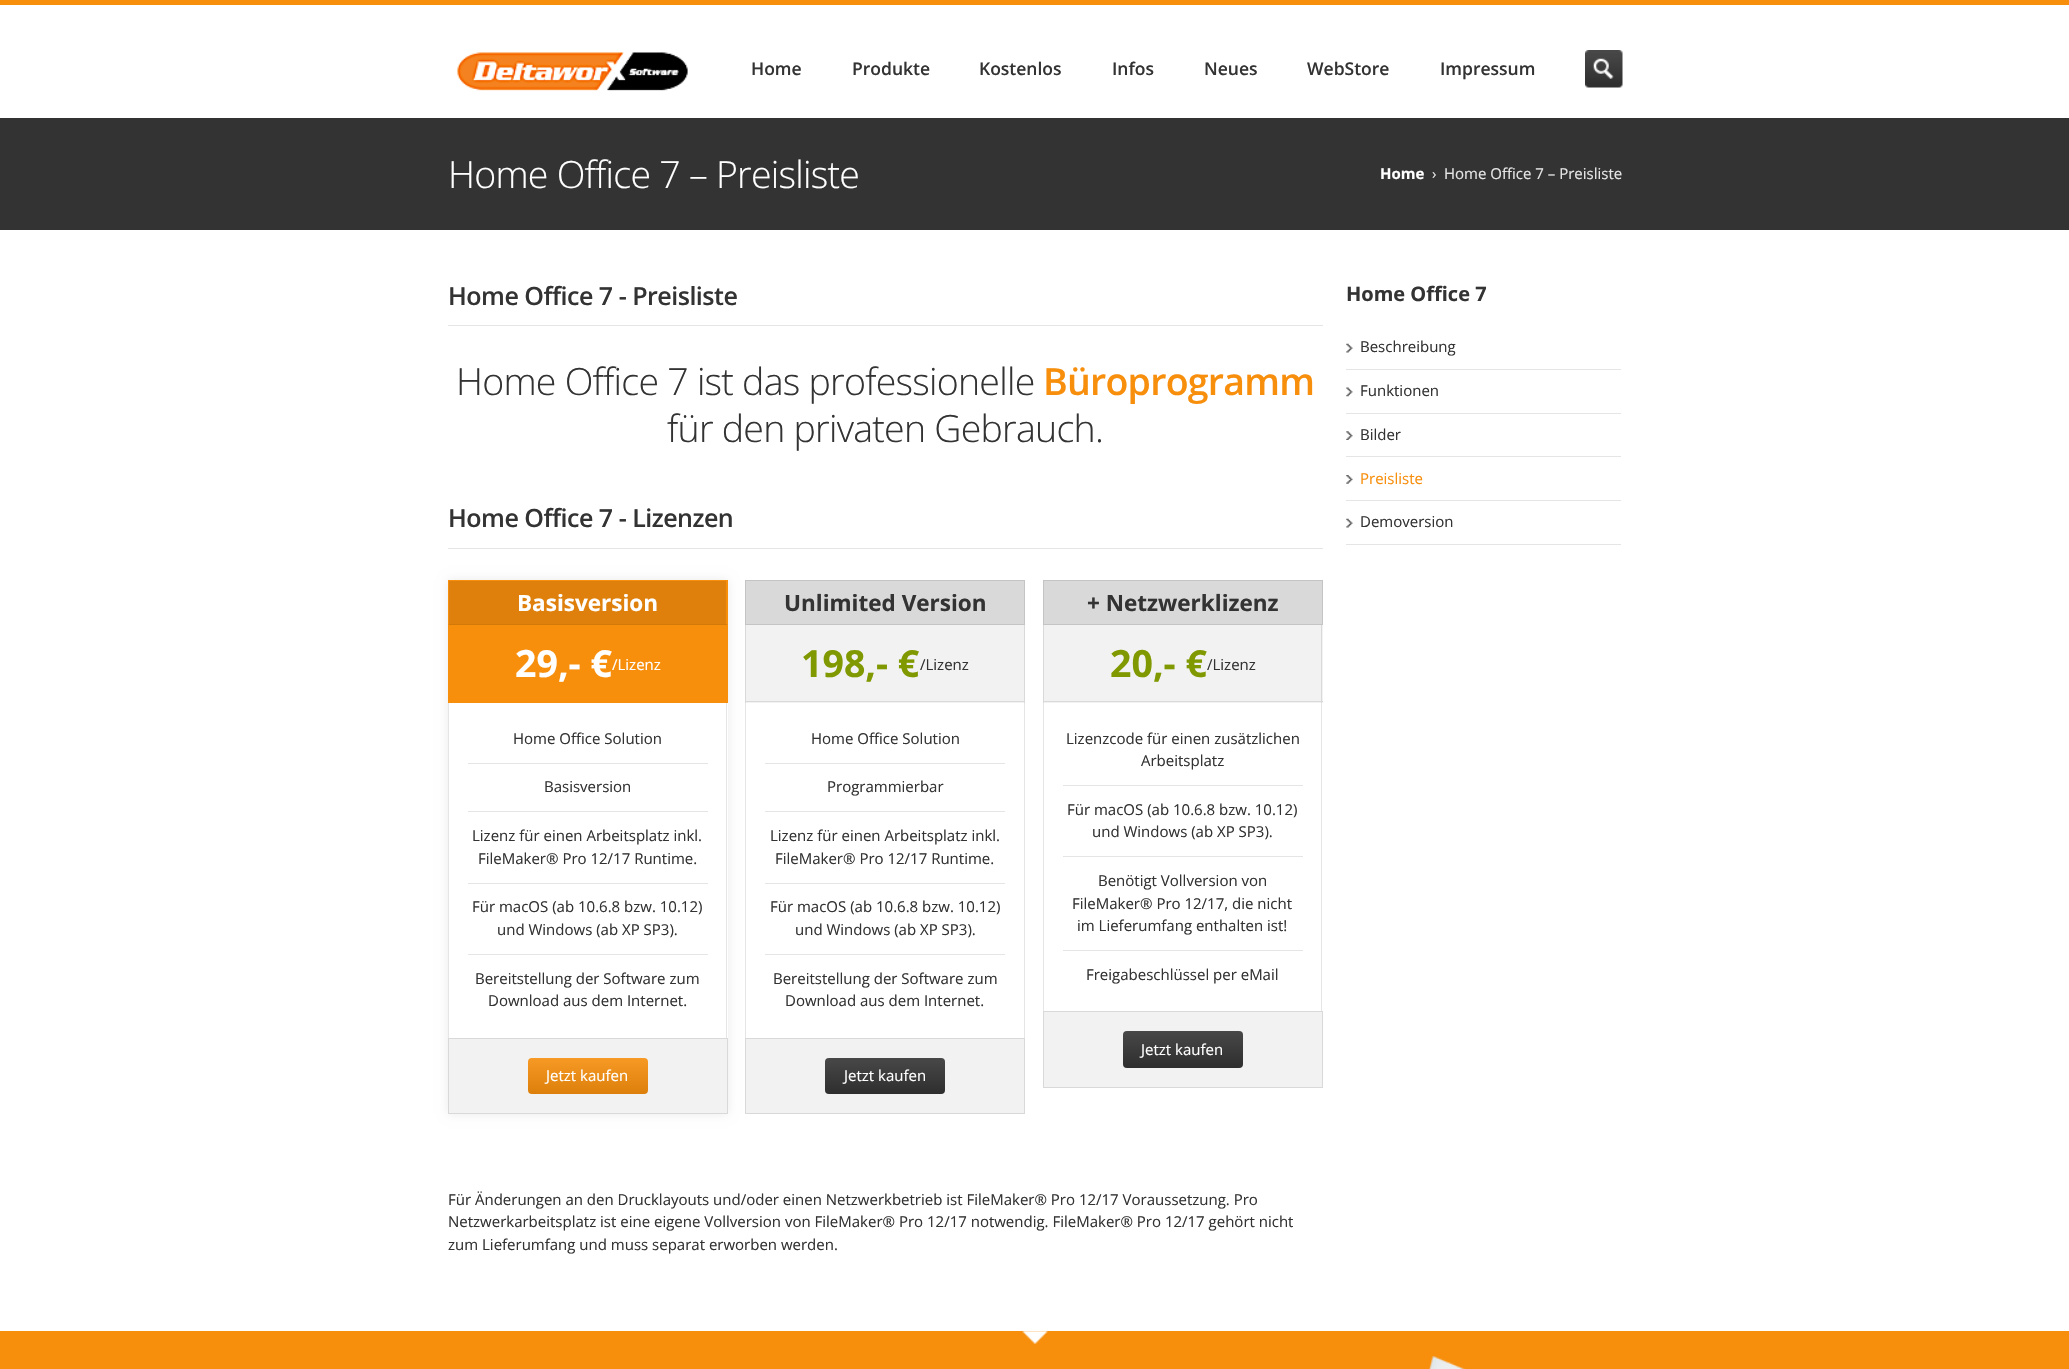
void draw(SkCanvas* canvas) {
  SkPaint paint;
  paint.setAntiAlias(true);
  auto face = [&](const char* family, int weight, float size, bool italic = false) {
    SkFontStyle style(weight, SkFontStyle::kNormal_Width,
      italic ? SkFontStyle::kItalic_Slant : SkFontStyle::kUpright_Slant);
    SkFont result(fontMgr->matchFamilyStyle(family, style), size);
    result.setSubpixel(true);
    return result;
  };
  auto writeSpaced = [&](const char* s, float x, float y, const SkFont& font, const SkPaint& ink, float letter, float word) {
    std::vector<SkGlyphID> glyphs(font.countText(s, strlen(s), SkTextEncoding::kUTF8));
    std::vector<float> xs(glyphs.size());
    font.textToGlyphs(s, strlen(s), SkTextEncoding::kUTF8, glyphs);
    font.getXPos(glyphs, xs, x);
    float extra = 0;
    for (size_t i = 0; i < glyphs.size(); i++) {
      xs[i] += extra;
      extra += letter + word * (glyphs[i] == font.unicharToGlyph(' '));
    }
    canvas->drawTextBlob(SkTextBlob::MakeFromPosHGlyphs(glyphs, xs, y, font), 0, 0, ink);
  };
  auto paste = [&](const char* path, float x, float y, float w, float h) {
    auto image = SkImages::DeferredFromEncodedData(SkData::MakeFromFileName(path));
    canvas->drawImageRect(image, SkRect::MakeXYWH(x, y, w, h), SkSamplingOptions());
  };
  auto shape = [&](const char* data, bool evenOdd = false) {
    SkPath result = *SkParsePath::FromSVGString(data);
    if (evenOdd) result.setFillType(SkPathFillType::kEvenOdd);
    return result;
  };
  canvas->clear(0xffffffff);
  paint.setColor(0xfff78e0c);
  canvas->drawRect(SkRect::MakeXYWH(0, 0, 2069, 5), paint);
  paste("img/1.png", 457, 52, 231, 39);
  paste("img/2.png", 1585, 50, 38, 38);
  {
    const struct { float x, y, w, h; SkColor color; } items[] = {
      {0, 118, 2069, 112, 0xff333333},
      {448, 325, 875, 1, 0xffe5e5e5},
      {448, 548, 875, 1, 0xffe5e5e5},
    };
    for (auto [x, y, w, h, color] : items) {
      paint.setColor(color);
      canvas->drawRect(SkRect::MakeXYWH(x, y, w, h), paint);
    }
  }
  paint.setColor(0x14000000);
  paint.setMaskFilter(SkMaskFilter::MakeBlur(kNormal_SkBlurStyle, 5));
  canvas->drawRect(SkRect::MakeXYWH(448, 580, 280, 534), paint);
  paint.setMaskFilter(nullptr);
  paint.setColor(0xfff78e0c);
  canvas->drawRect(SkRect::MakeXYWH(448, 580, 280, 123), paint);
  paint.setColor(0xffde800b);
  canvas->drawRect(SkRect::MakeXYWH(449, 581, 277, 43), paint);
  paint.setColor(0xffd2790a);
  canvas->drawPath(shape("M728 625H448L449 624H726Z"), paint);
  paint.setColor(0xfff78e0c);
  canvas->drawPath(shape("M448 625V580L449 581V624Z"), paint);
  {
    const struct { float x, y, w, h; SkColor color; } items[] = {
      {449, 703, 279, 335, 0xffffffff},
      {726, 703, 1, 335, 0xffe5e5e5},
      {448, 703, 1, 335, 0xffe5e5e5},
      {468, 763, 240, 1, 0xffe5e5e5},
      {468, 811, 240, 1, 0xffe5e5e5},
      {468, 883, 240, 1, 0xffe5e5e5},
      {468, 954, 240, 1, 0xffe5e5e5},
    };
    for (auto [x, y, w, h, color] : items) {
      paint.setColor(color);
      canvas->drawRect(SkRect::MakeXYWH(x, y, w, h), paint);
    }
  }
  paint.setColor(0xfff2f2f2);
  canvas->drawRect(SkRect::MakeXYWH(448.5f, 1038.5f, 279, 75), paint);
  paint.setStroke(true);
  paint.setStrokeWidth(1);
  paint.setColor(0xffd9d9d9);
  canvas->drawRect(SkRect::MakeXYWH(448.5f, 1038.5f, 279, 75), paint);
  paint.setStroke(false);
  paint.setColor(0xfff78e0c);
  canvas->drawRoundRect(SkRect::MakeXYWH(528, 1058, 120, 36), 4, 4, paint);
  {
    const SkColor colors[] = {0x1affffff, 0x1a000000};
    const float stops[] = {0, 1};
    const SkPoint ends[] = {{588, 1058}, {588, 1094}};
    paint.setShader(SkGradientShader::MakeLinear(ends, colors, stops, 2, SkTileMode::kClamp));
    paint.setAlpha(255);
  }
  canvas->drawRoundRect(SkRect::MakeXYWH(528, 1058, 120, 36), 4, 4, paint);
  paint.setShader(nullptr);
  paint.setColor(0xffd9d9d9);
  canvas->drawRect(SkRect::MakeXYWH(745.5f, 580.5f, 279, 44), paint);
  paint.setStroke(true);
  paint.setColor(0xffc4c4c4);
  canvas->drawRect(SkRect::MakeXYWH(745.5f, 580.5f, 279, 44), paint);
  paint.setStroke(false);
  {
    const struct { float x, y, w, h; SkColor color; } items[] = {
      {746, 625, 278, 78, 0xfff2f2f2},
      {1024, 625, 1, 78, 0xffd9d9d9},
      {745, 701, 280, 1, 0xffd9d9d9},
      {745, 625, 1, 78, 0xffd9d9d9},
      {1024, 703, 1, 335, 0xffe5e5e5},
      {745, 703, 1, 335, 0xffe5e5e5},
      {765, 763, 240, 1, 0xffe5e5e5},
      {765, 811, 240, 1, 0xffe5e5e5},
      {765, 883, 240, 1, 0xffe5e5e5},
      {765, 954, 240, 1, 0xffe5e5e5},
    };
    for (auto [x, y, w, h, color] : items) {
      paint.setColor(color);
      canvas->drawRect(SkRect::MakeXYWH(x, y, w, h), paint);
    }
  }
  paint.setColor(0xfff2f2f2);
  canvas->drawRect(SkRect::MakeXYWH(745.5f, 1038.5f, 279, 75), paint);
  paint.setStroke(true);
  paint.setColor(0xffd9d9d9);
  canvas->drawRect(SkRect::MakeXYWH(745.5f, 1038.5f, 279, 75), paint);
  paint.setStroke(false);
  paint.setColor(0xff333333);
  canvas->drawRoundRect(SkRect::MakeXYWH(825, 1058, 120, 36), 4, 4, paint);
  {
    const SkColor colors[] = {0x1affffff, 0x1a000000};
    const float stops[] = {0, 1};
    const SkPoint ends[] = {{885, 1058}, {885, 1094}};
    paint.setShader(SkGradientShader::MakeLinear(ends, colors, stops, 2, SkTileMode::kClamp));
    paint.setAlpha(255);
  }
  canvas->drawRoundRect(SkRect::MakeXYWH(825, 1058, 120, 36), 4, 4, paint);
  paint.setShader(nullptr);
  paint.setColor(0xffd9d9d9);
  canvas->drawRect(SkRect::MakeXYWH(1043.5f, 580.5f, 279, 44), paint);
  paint.setStroke(true);
  paint.setColor(0xffc4c4c4);
  canvas->drawRect(SkRect::MakeXYWH(1043.5f, 580.5f, 279, 44), paint);
  paint.setStroke(false);
  {
    const struct { float x, y, w, h; SkColor color; } items[] = {
      {1044, 625, 279, 78, 0xfff2f2f2},
      {1321, 625, 1, 78, 0xffd9d9d9},
      {1043, 701, 280, 1, 0xffd9d9d9},
      {1043, 625, 1, 78, 0xffd9d9d9},
      {1321, 703, 1, 308, 0xffe5e5e5},
      {1043, 703, 1, 308, 0xffe5e5e5},
      {1063, 785, 240, 1, 0xffe5e5e5},
      {1063, 856, 240, 1, 0xffe5e5e5},
      {1063, 950, 240, 1, 0xffe5e5e5},
    };
    for (auto [x, y, w, h, color] : items) {
      paint.setColor(color);
      canvas->drawRect(SkRect::MakeXYWH(x, y, w, h), paint);
    }
  }
  paint.setColor(0xfff2f2f2);
  canvas->drawRect(SkRect::MakeXYWH(1043.5f, 1011.5f, 279, 76), paint);
  paint.setStroke(true);
  paint.setColor(0xffd9d9d9);
  canvas->drawRect(SkRect::MakeXYWH(1043.5f, 1011.5f, 279, 76), paint);
  paint.setStroke(false);
  paint.setColor(0xff333333);
  canvas->drawRoundRect(SkRect::MakeXYWH(1123, 1031, 120, 37), 4, 4, paint);
  {
    const SkColor colors[] = {0x1affffff, 0x1a000000};
    const float stops[] = {0, 1};
    const SkPoint ends[] = {{1183, 1031}, {1183, 1068}};
    paint.setShader(SkGradientShader::MakeLinear(ends, colors, stops, 2, SkTileMode::kClamp));
    paint.setAlpha(255);
  }
  canvas->drawRoundRect(SkRect::MakeXYWH(1123, 1031, 120, 37), 4, 4, paint);
  paint.setShader(nullptr);
  paint.setColor(0xffe5e5e5);
  canvas->drawRect(SkRect::MakeXYWH(1346, 369, 275, 1), paint);
  paste("img/3.png", 1346, 343, 7, 10);
  canvas->drawRect(SkRect::MakeXYWH(1346, 413, 275, 1), paint);
  paste("img/4.png", 1346, 387, 7, 10);
  canvas->drawRect(SkRect::MakeXYWH(1346, 456, 275, 1), paint);
  paste("img/5.png", 1346, 431, 7, 9);
  canvas->drawRect(SkRect::MakeXYWH(1346, 500, 275, 1), paint);
  paste("img/6.png", 1346, 475, 7, 9);
  canvas->drawRect(SkRect::MakeXYWH(1346, 544, 275, 1), paint);
  paste("img/3.png", 1346, 518, 7, 10);
  paint.setColor(0xfff78e0c);
  canvas->drawRect(SkRect::MakeXYWH(0, 1331, 2069, 38), paint);
  paste("img/7.png", 1022, 1331, 26, 13);
  paste("img/8.png", 1428, 1356, 38, 13);
  auto f0 = face("Open Sans", 600, 17.5f);
  paint.setColor(0xff333333);
  {
    const struct { const char* s; float x, y; } items[] = {
      {"Home", 751, 75},
      {"Produkte", 852, 75},
      {"Kostenlos", 979, 75},
      {"Infos", 1112, 75},
      {"Neues", 1204, 75},
      {"WebStore", 1307, 75},
      {"Impressum", 1440, 75},
    };
    for (auto [s, x, y] : items) {
      canvas->drawString(s, x, y, f0, paint);
    }
  }
  auto f1 = face("Open Sans", 300, 37.5f);
  paint.setColor(0xffffffff);
  writeSpaced("Home Office 7 – Preisliste", 448, 188, f1, paint, -0.75f, 0);
  auto f2 = face("Open Sans", 700, 15);
  canvas->drawString("Home", 1380, 179, f2, paint);
  auto f3 = face("Open Sans", 400, 15);
  paint.setColor(0xffe5e5e5);
  canvas->drawString("›", 1432, 179, f3, paint);
  canvas->drawString("Home Office 7 – Preisliste", 1444, 179, f3, paint);
  auto f4 = face("Open Sans", 600, 25);
  paint.setColor(0xff333333);
  writeSpaced("Home Office 7 - Preisliste", 448, 305, f4, paint, -0.5f, 0);
  writeSpaced("Home Office 7 ist das professionelle", 456, 395, f1, paint, -0.75f, 0);
  auto f5 = face("Open Sans", 600, 37.5f);
  paint.setColor(0xfff78e0c);
  writeSpaced("Büroprogramm", 1043, 395, f5, paint, -0.75f, 0);
  paint.setColor(0xff333333);
  writeSpaced("für den privaten Gebrauch.", 667, 442, f1, paint, -0.75f, 0);
  writeSpaced("Home Office 7 - Lizenzen", 448, 527, f4, paint, -0.5f, 0);
  auto f6 = face("Open Sans", 700, 22.5f);
  paint.setColor(0xffffffff);
  canvas->drawString("Basisversion", 517, 611, f6, paint);
  auto f7 = face("Open Sans", 700, 37.5f);
  canvas->drawString("29,- €", 515, 677, f7, paint);
  canvas->drawString("/Lizenz", 612, 670, f3, paint);
  paint.setColor(0xff333333);
  {
    const struct { const char* s; float x, y; } items[] = {
      {"Home Office Solution", 513, 744},
      {"Basisversion", 544, 792},
      {"Lizenz für einen Arbeitsplatz inkl.", 472, 841},
      {"FileMaker® Pro 12/17 Runtime.", 478, 864},
      {"Für macOS (ab 10.6.8 bzw. 10.12)", 472, 912},
      {"und Windows (ab XP SP3).", 497, 935},
      {"Bereitstellung der Software zum", 475, 984},
      {"Download aus dem Internet.", 488, 1006},
    };
    for (auto [s, x, y] : items) {
      canvas->drawString(s, x, y, f3, paint);
    }
  }
  paint.setColor(0xffffffff);
  canvas->drawString("Jetzt kaufen", 546, 1081, f3, paint);
  paint.setColor(0xff333333);
  canvas->drawString("Unlimited Version", 784, 611, f6, paint);
  paint.setColor(0xff809900);
  canvas->drawString("198,- €", 801, 677, f7, paint);
  paint.setColor(0xff333333);
  {
    const struct { const char* s; float x, y; } items[] = {
      {"/Lizenz", 920, 670},
      {"Home Office Solution", 811, 744},
      {"Programmierbar", 827, 792},
      {"Lizenz für einen Arbeitsplatz inkl.", 770, 841},
      {"FileMaker® Pro 12/17 Runtime.", 775, 864},
      {"Für macOS (ab 10.6.8 bzw. 10.12)", 770, 912},
      {"und Windows (ab XP SP3).", 795, 935},
      {"Bereitstellung der Software zum", 773, 984},
      {"Download aus dem Internet.", 785, 1006},
    };
    for (auto [s, x, y] : items) {
      canvas->drawString(s, x, y, f3, paint);
    }
  }
  paint.setColor(0xffffffff);
  canvas->drawString("Jetzt kaufen", 844, 1081, f3, paint);
  paint.setColor(0xff333333);
  canvas->drawString("+ Netzwerklizenz", 1087, 611, f6, paint);
  paint.setColor(0xff809900);
  canvas->drawString("20,- €", 1110, 677, f7, paint);
  paint.setColor(0xff333333);
  {
    const struct { const char* s; float x, y; } items[] = {
      {"/Lizenz", 1207, 670},
      {"Lizenzcode für einen zusätzlichen", 1066, 744},
      {"Arbeitsplatz", 1141, 766},
      {"Für macOS (ab 10.6.8 bzw. 10.12)", 1067, 815},
      {"und Windows (ab XP SP3).", 1092, 837},
      {"Benötigt Vollversion von", 1098, 886},
      {"FileMaker® Pro 12/17, die nicht", 1072, 909},
      {"im Lieferumfang enthalten ist!", 1077, 931},
      {"Freigabeschlüssel per eMail", 1086, 980},
    };
    for (auto [s, x, y] : items) {
      canvas->drawString(s, x, y, f3, paint);
    }
  }
  paint.setColor(0xffffffff);
  canvas->drawString("Jetzt kaufen", 1141, 1055, f3, paint);
  paint.setColor(0xff333333);
  {
    const struct { const char* s; float x, y; } items[] = {
      {"Für Änderungen an den Drucklayouts und/oder einen Netzwerkbetrieb ist FileMaker® Pro 12/17 Voraussetzung. Pro", 448, 1205},
      {"Netzwerkarbeitsplatz ist eine eigene Vollversion von FileMaker® Pro 12/17 notwendig. FileMaker® Pro 12/17 gehört nicht", 448, 1227},
      {"zum Lieferumfang und muss separat erworben werden.", 448, 1250},
    };
    for (auto [s, x, y] : items) {
      canvas->drawString(s, x, y, f3, paint);
    }
  }
  auto f8 = face("Open Sans", 700, 20);
  canvas->drawString("Home Office 7", 1346, 301, f8, paint);
  {
    const struct { const char* s; float x, y; } items[] = {
      {"Beschreibung", 1360, 352},
      {"Funktionen", 1360, 396},
      {"Bilder", 1360, 440},
    };
    for (auto [s, x, y] : items) {
      canvas->drawString(s, x, y, f3, paint);
    }
  }
  paint.setColor(0xfff78e0c);
  canvas->drawString("Preisliste", 1360, 484, f3, paint);
  paint.setColor(0xff333333);
  canvas->drawString("Demoversion", 1360, 527, f3, paint);
}
